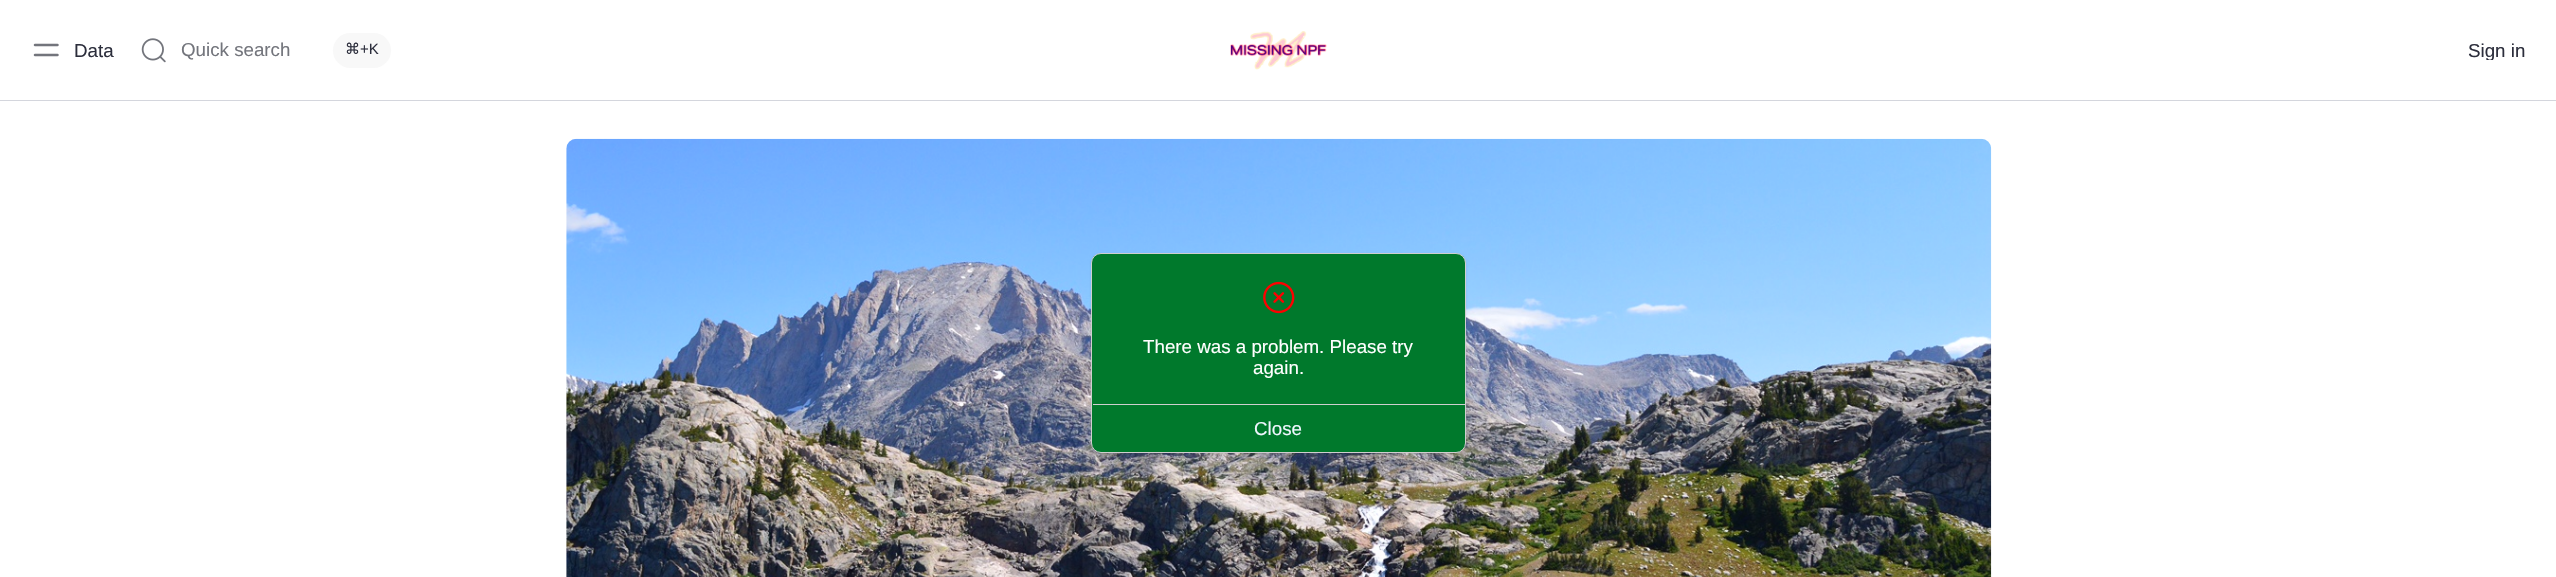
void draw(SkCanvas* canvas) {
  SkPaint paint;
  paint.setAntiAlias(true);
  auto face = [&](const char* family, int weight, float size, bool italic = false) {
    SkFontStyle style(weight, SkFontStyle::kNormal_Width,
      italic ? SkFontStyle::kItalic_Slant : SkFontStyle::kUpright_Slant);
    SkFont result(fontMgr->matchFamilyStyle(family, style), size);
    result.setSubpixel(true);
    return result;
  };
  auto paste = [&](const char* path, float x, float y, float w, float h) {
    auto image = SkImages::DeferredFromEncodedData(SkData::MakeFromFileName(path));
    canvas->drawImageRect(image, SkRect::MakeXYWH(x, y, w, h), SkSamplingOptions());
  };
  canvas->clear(0xffffffff);
  paint.setColor(0xffd4d6dd);
  canvas->drawRect(SkRect::MakeXYWH(0, 100, 2556, 1), paint);
  paste("img/1.png", 33, 43, 26, 14);
  paste("img/2.png", 141, 38, 25, 25);
  paint.setColor(0xfff8f8f8);
  canvas->drawRoundRect(SkRect::MakeXYWH(333, 33, 58, 35), 17.5f, 17.5f, paint);
  paste("img/3.png", 1230, 31, 97, 39);
  paste("img/4.png", 566, 138, 1426, 439);
  paint.setColor(0x1a000000);
  paint.setMaskFilter(SkMaskFilter::MakeBlur(kNormal_SkBlurStyle, 1));
  canvas->drawRoundRect(SkRect::MakeXYWH(1091, 254, 375, 200), 10, 10, paint);
  paint.setMaskFilter(nullptr);
  paint.setColor(0xff00792c);
  canvas->drawRoundRect(SkRect::MakeXYWH(1091.5f, 253.5f, 374, 199), 9.5f, 9.5f, paint);
  paint.setStroke(true);
  paint.setStrokeWidth(1);
  paint.setColor(0xffcfcfcf);
  canvas->drawRoundRect(SkRect::MakeXYWH(1091.5f, 253.5f, 374, 199), 9.5f, 9.5f, paint);
  paste("img/5.png", 1263, 281, 32, 33);
  paint.setStroke(false);
  canvas->drawRect(SkRect::MakeXYWH(1093, 404, 372, 1), paint);
  auto f0 = face("Liberation Sans", 400, 18.75f);
  paint.setColor(0xff2c2e3c);
  canvas->drawString("Data", 74, 57, f0, paint);
  paint.setColor(0xff73757c);
  canvas->drawString("Quick search", 181, 56, f0, paint);
  auto f1 = face("DejaVu Sans", 400, 15);
  paint.setColor(0xff2c2e3c);
  canvas->drawString("⌘", 345, 54, f1, paint);
  auto f2 = face("Liberation Sans", 400, 15);
  canvas->drawString("+K", 360, 54, f2, paint);
  canvas->save();
  canvas->clipRect(SkRect::MakeXYWH(2468, 39, 57, 21));
  canvas->drawString("Sign in", 2468, 57, f0, paint);
  canvas->restore();
  paint.setColor(0xffffffff);
  canvas->drawString("There was a problem. Please try", 1143, 353, f0, paint);
  canvas->drawString("again.", 1253, 374, f0, paint);
  paint.setColor(0xfff0f7ff);
  canvas->drawString("Close", 1254, 435, f0, paint);
}
